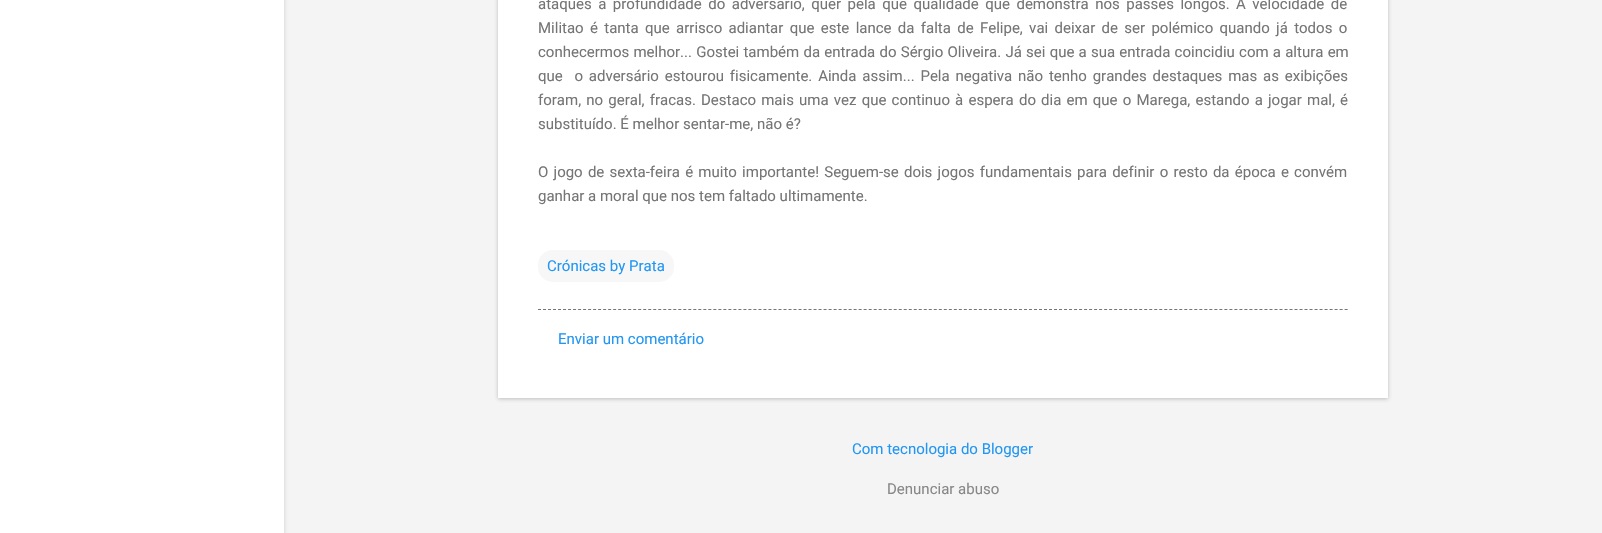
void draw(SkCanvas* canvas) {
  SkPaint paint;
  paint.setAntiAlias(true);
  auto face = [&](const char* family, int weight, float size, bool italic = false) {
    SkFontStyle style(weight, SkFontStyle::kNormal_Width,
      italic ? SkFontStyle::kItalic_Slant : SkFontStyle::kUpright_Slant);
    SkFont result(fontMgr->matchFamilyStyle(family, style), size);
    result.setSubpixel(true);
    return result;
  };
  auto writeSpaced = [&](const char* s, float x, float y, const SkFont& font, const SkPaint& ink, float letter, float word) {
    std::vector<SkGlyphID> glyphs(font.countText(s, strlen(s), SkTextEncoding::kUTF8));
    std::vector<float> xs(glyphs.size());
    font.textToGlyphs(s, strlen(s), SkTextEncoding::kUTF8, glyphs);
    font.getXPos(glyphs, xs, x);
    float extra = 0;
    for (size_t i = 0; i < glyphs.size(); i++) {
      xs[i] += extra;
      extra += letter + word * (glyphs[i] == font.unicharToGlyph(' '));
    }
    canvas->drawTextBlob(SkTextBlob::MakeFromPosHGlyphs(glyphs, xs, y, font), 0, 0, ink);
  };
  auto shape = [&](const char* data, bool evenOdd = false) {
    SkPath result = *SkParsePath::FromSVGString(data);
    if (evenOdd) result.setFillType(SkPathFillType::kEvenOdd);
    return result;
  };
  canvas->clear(0xfff4f4f4);
  paint.setColor(0x1a000000);
  paint.setMaskFilter(SkMaskFilter::MakeBlur(kNormal_SkBlurStyle, 1.5f));
  canvas->drawRect(SkRect::MakeXYWH(1, -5, 284, 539), paint);
  paint.setMaskFilter(nullptr);
  paint.setColor(0xffffffff);
  canvas->drawRect(SkRect::MakeXYWH(0, 0, 284, 533), paint);
  paint.setColor(0x4d3c4043);
  paint.setMaskFilter(SkMaskFilter::MakeBlur(kNormal_SkBlurStyle, 2));
  canvas->drawRect(SkRect::MakeXYWH(498, -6, 890, 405), paint);
  paint.setMaskFilter(nullptr);
  paint.setColor(0xffffffff);
  canvas->drawRect(SkRect::MakeXYWH(498, 0, 890, 398), paint);
  paint.setColor(0xfff7f7f7);
  canvas->drawRoundRect(SkRect::MakeXYWH(538, 250, 136, 32), 15, 15, paint);
  paint.setStroke(true);
  paint.setStrokeWidth(1);
  paint.setColor(0xff757575);
  paint.setPathEffect(SkDashPathEffect::Make({{3, 2.01f}}, 0));
  canvas->drawPath(shape("M538 309.5H1348"), paint);
  paint.setPathEffect(nullptr);
  auto f0 = face("Roboto", 400, 15);
  paint.setStroke(false);
  writeSpaced("ataques à profundidade do adversário, quer pela que qualidade que demonstra nos passes longos. A velocidade de", 538, 9, f0, paint, 0, 2.75f);
  writeSpaced("Militao é tanta que arrisco adiantar que este lance da falta de Felipe, vai deixar de ser polémico quando já todos o", 538, 33, f0, paint, 0, 2.6f);
  writeSpaced("conhecermos melhor... Gostei também da entrada do Sérgio Oliveira. Já sei que a sua entrada coincidiu com a altura em", 538, 57, f0, paint, 0, 0.5f);
  writeSpaced("que  o adversário estourou fisicamente. Ainda assim... Pela negativa não tenho grandes destaques mas as exibições", 538, 81, f0, paint, 0, 2.1f);
  writeSpaced("foram, no geral, fracas. Destaco mais uma vez que continuo à espera do dia em que o Marega, estando a jogar mal, é", 538, 105, f0, paint, 0, 1.45f);
  canvas->drawString("substituído. É melhor sentar-me, não é?", 538, 129, f0, paint);
  writeSpaced("O jogo de sexta-feira é muito importante! Seguem-se dois jogos fundamentais para definir o resto da época e convém", 538, 177, f0, paint, 0, 1.5f);
  canvas->drawString("ganhar a moral que nos tem faltado ultimamente.", 538, 201, f0, paint);
  paint.setColor(0xff2196f3);
  {
    const struct { const char* s; float x, y; } items[] = {
      {"Crónicas by Prata", 547, 271},
      {"Enviar um comentário", 558, 344},
      {"Com tecnologia do Blogger", 852, 454},
    };
    for (auto [s, x, y] : items) {
      canvas->drawString(s, x, y, f0, paint);
    }
  }
  paint.setColor(0xff888888);
  canvas->drawString("Denunciar abuso", 887, 494, f0, paint);
}
